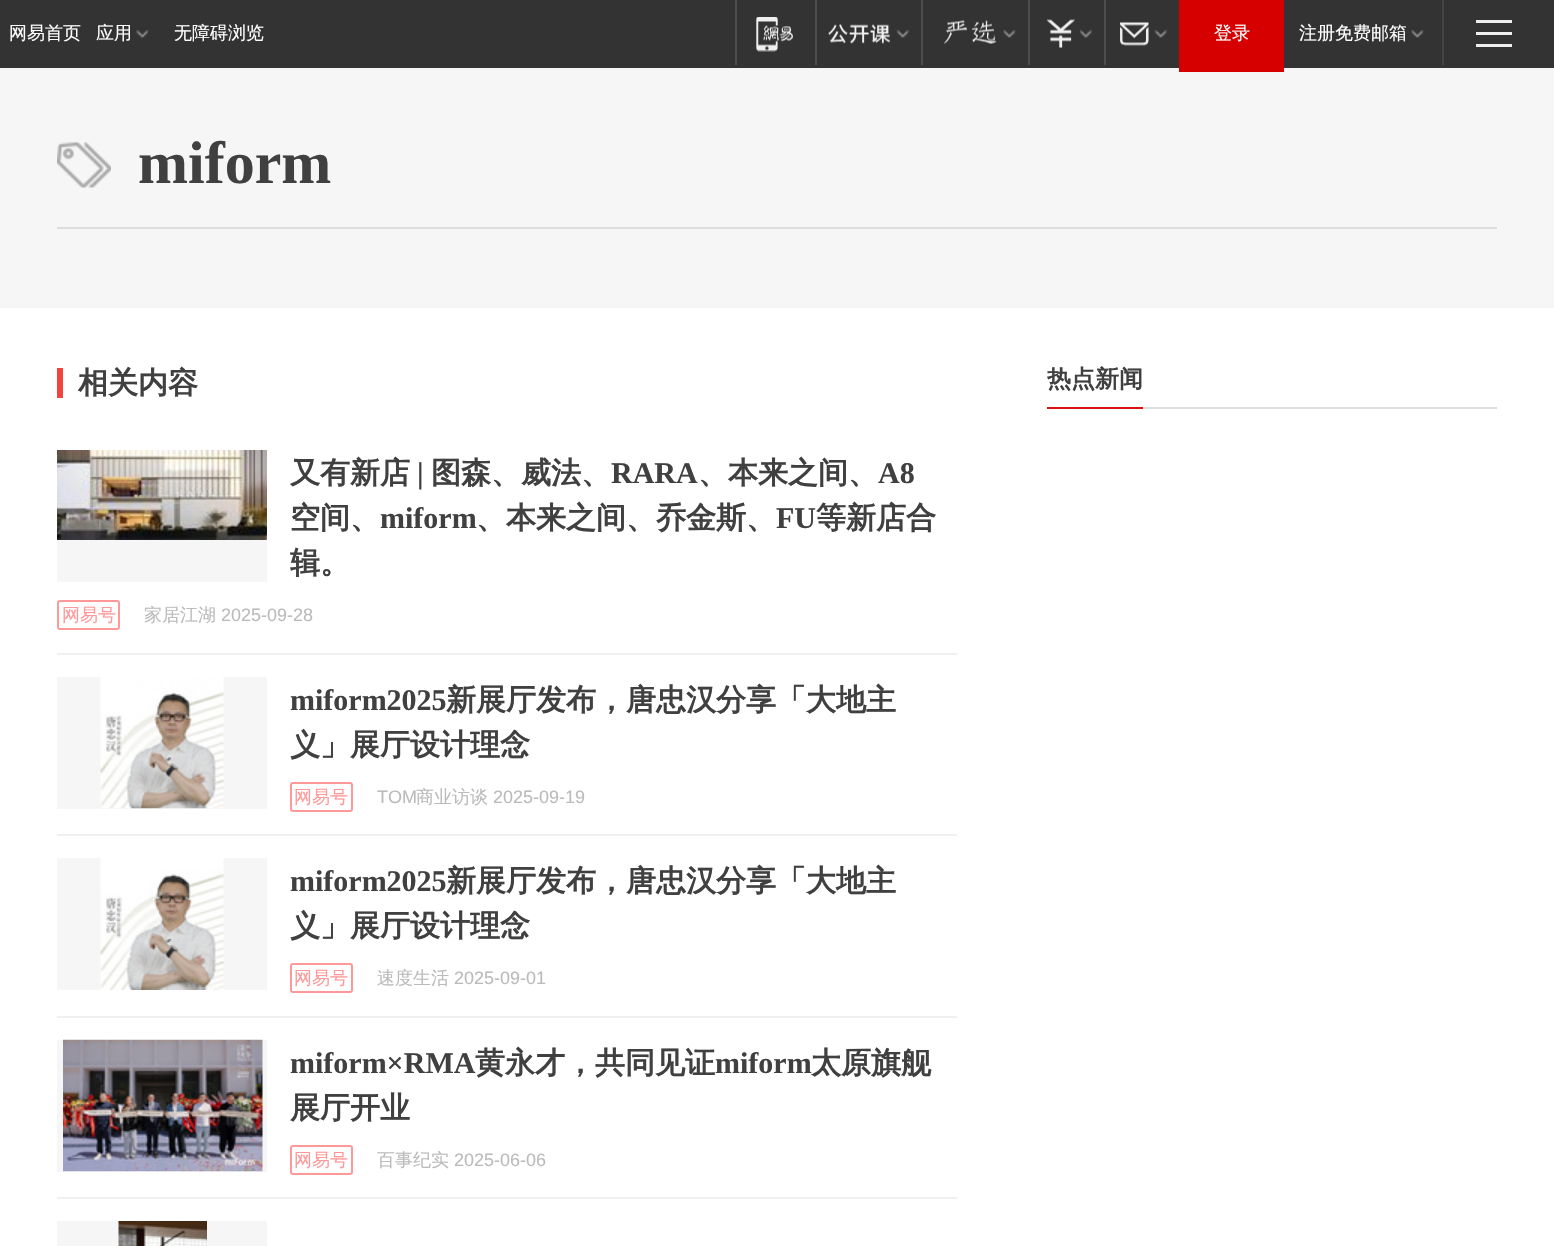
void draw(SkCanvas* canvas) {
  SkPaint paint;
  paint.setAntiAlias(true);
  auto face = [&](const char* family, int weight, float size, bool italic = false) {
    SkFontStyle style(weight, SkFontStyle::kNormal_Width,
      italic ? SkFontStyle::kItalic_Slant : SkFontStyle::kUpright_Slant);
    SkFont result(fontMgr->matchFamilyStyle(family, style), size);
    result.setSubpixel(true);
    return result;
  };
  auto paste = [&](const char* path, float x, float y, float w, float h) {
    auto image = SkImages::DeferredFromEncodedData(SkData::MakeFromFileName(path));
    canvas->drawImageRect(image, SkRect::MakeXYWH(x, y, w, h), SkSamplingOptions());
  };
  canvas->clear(0xffffffff);
  paint.setColor(0xff333333);
  canvas->drawRect(SkRect::MakeXYWH(0, 0, 1554, 68), paint);
  paste("img/1.png", 136, 29, 13, 9);
  paint.setColor(0xff4d4d4d);
  canvas->drawRect(SkRect::MakeXYWH(735, 0, 2, 65), paint);
  paste("img/2.png", 756, 17, 37, 35);
  canvas->drawRect(SkRect::MakeXYWH(815, 0, 2, 65), paint);
  paste("img/3.png", 828, 24, 62, 20);
  paste("img/4.png", 896, 29, 14, 9);
  canvas->drawRect(SkRect::MakeXYWH(921, 0, 2, 65), paint);
  paste("img/5.png", 944, 20, 53, 24);
  paste("img/1.png", 1003, 29, 13, 9);
  canvas->drawRect(SkRect::MakeXYWH(1028, 0, 2, 65), paint);
  paste("img/6.png", 1046, 19, 29, 29);
  paste("img/4.png", 1079, 29, 14, 9);
  canvas->drawRect(SkRect::MakeXYWH(1104, 0, 2, 65), paint);
  paste("img/7.png", 1120, 22, 29, 24);
  paste("img/4.png", 1154, 29, 14, 9);
  paint.setColor(0xfff6f6f6);
  canvas->drawRect(SkRect::MakeXYWH(0, 68, 1554, 240), paint);
  paint.setColor(0xffd60000);
  canvas->drawRect(SkRect::MakeXYWH(1179, 0, 105, 72), paint);
  paste("img/1.png", 1411, 29, 13, 9);
  {
    const struct { float x, y, w, h; SkColor color; } items[] = {
      {1442, 0, 2, 65, 0xff444444},
      {1476, 20, 36, 3, 0xffefefef},
      {1476, 32, 36, 3, 0xffefefef},
      {1476, 44, 36, 3, 0xffefefef},
    };
    for (auto [x, y, w, h, color] : items) {
      paint.setColor(color);
      canvas->drawRect(SkRect::MakeXYWH(x, y, w, h), paint);
    }
  }
  paste("img/8.png", 57, 142, 54, 46);
  {
    const struct { float x, y, w, h; SkColor color; } items[] = {
      {57, 227, 1440, 2, 0xffdddddd},
      {57, 368, 6, 30, 0xfff34540},
      {57, 653, 900, 2, 0xfff0f0f0},
      {57, 540, 210, 42, 0xfff6f6f6},
    };
    for (auto [x, y, w, h, color] : items) {
      paint.setColor(color);
      canvas->drawRect(SkRect::MakeXYWH(x, y, w, h), paint);
    }
  }
  paste("img/9.png", 57, 450, 210, 90);
  paint.setStroke(true);
  paint.setStrokeWidth(2);
  paint.setColor(0xffff9999);
  canvas->drawRoundRect(SkRect::MakeXYWH(58, 601, 61, 28), 2, 2, paint);
  paint.setStroke(false);
  paint.setColor(0xfff0f0f0);
  canvas->drawRect(SkRect::MakeXYWH(57, 834, 900, 2), paint);
  paint.setColor(0xfff6f6f6);
  canvas->drawRect(SkRect::MakeXYWH(57, 677, 210, 132), paint);
  paste("img/10.png", 100, 677, 124, 132);
  paint.setStroke(true);
  paint.setColor(0xffff9999);
  canvas->drawRoundRect(SkRect::MakeXYWH(291, 783, 61, 28), 2, 2, paint);
  paint.setStroke(false);
  paint.setColor(0xfff0f0f0);
  canvas->drawRect(SkRect::MakeXYWH(57, 1016, 900, 2), paint);
  paint.setColor(0xfff6f6f6);
  canvas->drawRect(SkRect::MakeXYWH(57, 858, 210, 132), paint);
  paste("img/11.png", 100, 858, 124, 132);
  paint.setStroke(true);
  paint.setColor(0xffff9999);
  canvas->drawRoundRect(SkRect::MakeXYWH(291, 964, 61, 28), 2, 2, paint);
  paint.setStroke(false);
  paint.setColor(0xfff0f0f0);
  canvas->drawRect(SkRect::MakeXYWH(57, 1197, 900, 2), paint);
  paint.setColor(0xfff6f6f6);
  canvas->drawRect(SkRect::MakeXYWH(57, 1040, 210, 132), paint);
  paste("img/12.png", 63, 1039, 200, 133);
  paint.setStroke(true);
  paint.setColor(0xffff9999);
  canvas->drawRoundRect(SkRect::MakeXYWH(291, 1146, 61, 28), 2, 2, paint);
  paint.setStroke(false);
  paint.setColor(0xfff6f6f6);
  canvas->drawRect(SkRect::MakeXYWH(57, 1221, 210, 25), paint);
  paste("img/13.png", 118, 1221, 89, 25);
  paint.setColor(0xffdddddd);
  canvas->drawRect(SkRect::MakeXYWH(1143, 407, 354, 2), paint);
  paint.setColor(0xffdb1011);
  canvas->drawRect(SkRect::MakeXYWH(1047, 407, 96, 2), paint);
  auto f0 = face("WenQuanYi Zen Hei", 500, 18);
  paint.setColor(0xffffffff);
  {
    const struct { const char* s; float x, y; } items[] = {
      {"网易首页", 9, 39},
      {"应用", 96, 39},
      {"无障碍浏览", 174, 39},
      {"登录", 1214, 39},
      {"注册免费邮箱", 1299, 39},
    };
    for (auto [s, x, y] : items) {
      canvas->drawString(s, x, y, f0, paint);
    }
  }
  auto f1 = face("Liberation Serif", 700, 60);
  paint.setColor(0xff404040);
  canvas->drawString("miform", 138, 183, f1, paint);
  auto f2 = face("WenQuanYi Zen Hei", 700, 30);
  canvas->drawString("相关内容", 78, 393, f2, paint);
  canvas->drawString("又有新店", 290, 483, f2, paint);
  auto f3 = face("Liberation Serif", 700, 30);
  canvas->drawString("|", 417, 483, f3, paint);
  canvas->drawString("图森、威法、", 431, 483, f2, paint);
  canvas->drawString("RARA", 611, 483, f3, paint);
  canvas->drawString("、本来之间、", 698, 483, f2, paint);
  canvas->drawString("A8", 878, 483, f3, paint);
  canvas->drawString("空间、", 290, 528, f2, paint);
  canvas->drawString("miform", 380, 528, f3, paint);
  canvas->drawString("、本来之间、乔金斯、", 476, 528, f2, paint);
  canvas->drawString("FU", 776, 528, f3, paint);
  canvas->drawString("等新店合", 816, 528, f2, paint);
  canvas->save();
  canvas->clipRect(SkRect::MakeXYWH(290, 450, 667, 150));
  canvas->drawString("辑。", 290, 573, f2, paint);
  canvas->restore();
  paint.setColor(0xffff9999);
  canvas->drawString("网易号", 62, 621, f0, paint);
  paint.setColor(0xffbbbbbb);
  canvas->drawString("家居江湖", 144, 621, f0, paint);
  auto f4 = face("Liberation Sans", 400, 18);
  canvas->drawString("2025-09-28", 221, 621, f4, paint);
  paint.setColor(0xff404040);
  canvas->drawString("miform2025", 290, 710, f3, paint);
  canvas->drawString("新展厅发布，唐忠汉分享「大地主", 446, 710, f2, paint);
  canvas->drawString("义」展厅设计理念", 290, 755, f2, paint);
  paint.setColor(0xffff9999);
  canvas->drawString("网易号", 294, 803, f0, paint);
  paint.setColor(0xffbbbbbb);
  canvas->drawString("TOM", 377, 803, f4, paint);
  canvas->drawString("商业访谈", 416, 803, f0, paint);
  canvas->drawString("2025-09-19", 493, 803, f4, paint);
  paint.setColor(0xff404040);
  canvas->drawString("miform2025", 290, 891, f3, paint);
  canvas->drawString("新展厅发布，唐忠汉分享「大地主", 446, 891, f2, paint);
  canvas->drawString("义」展厅设计理念", 290, 936, f2, paint);
  paint.setColor(0xffff9999);
  canvas->drawString("网易号", 294, 984, f0, paint);
  paint.setColor(0xffbbbbbb);
  canvas->drawString("速度生活", 377, 984, f0, paint);
  canvas->drawString("2025-09-01", 454, 984, f4, paint);
  paint.setColor(0xff404040);
  canvas->drawString("miform×RMA", 290, 1073, f3, paint);
  canvas->drawString("黄永才，共同见证", 475, 1073, f2, paint);
  canvas->drawString("miform", 715, 1073, f3, paint);
  canvas->drawString("太原旗舰", 811, 1073, f2, paint);
  canvas->drawString("展厅开业", 290, 1118, f2, paint);
  paint.setColor(0xffff9999);
  canvas->drawString("网易号", 294, 1166, f0, paint);
  paint.setColor(0xffbbbbbb);
  canvas->drawString("百事纪实", 377, 1166, f0, paint);
  canvas->drawString("2025-06-06", 454, 1166, f4, paint);
  auto f5 = face("WenQuanYi Zen Hei", 700, 24);
  paint.setColor(0xff404040);
  canvas->drawString("热点新闻", 1047, 387, f5, paint);
}
